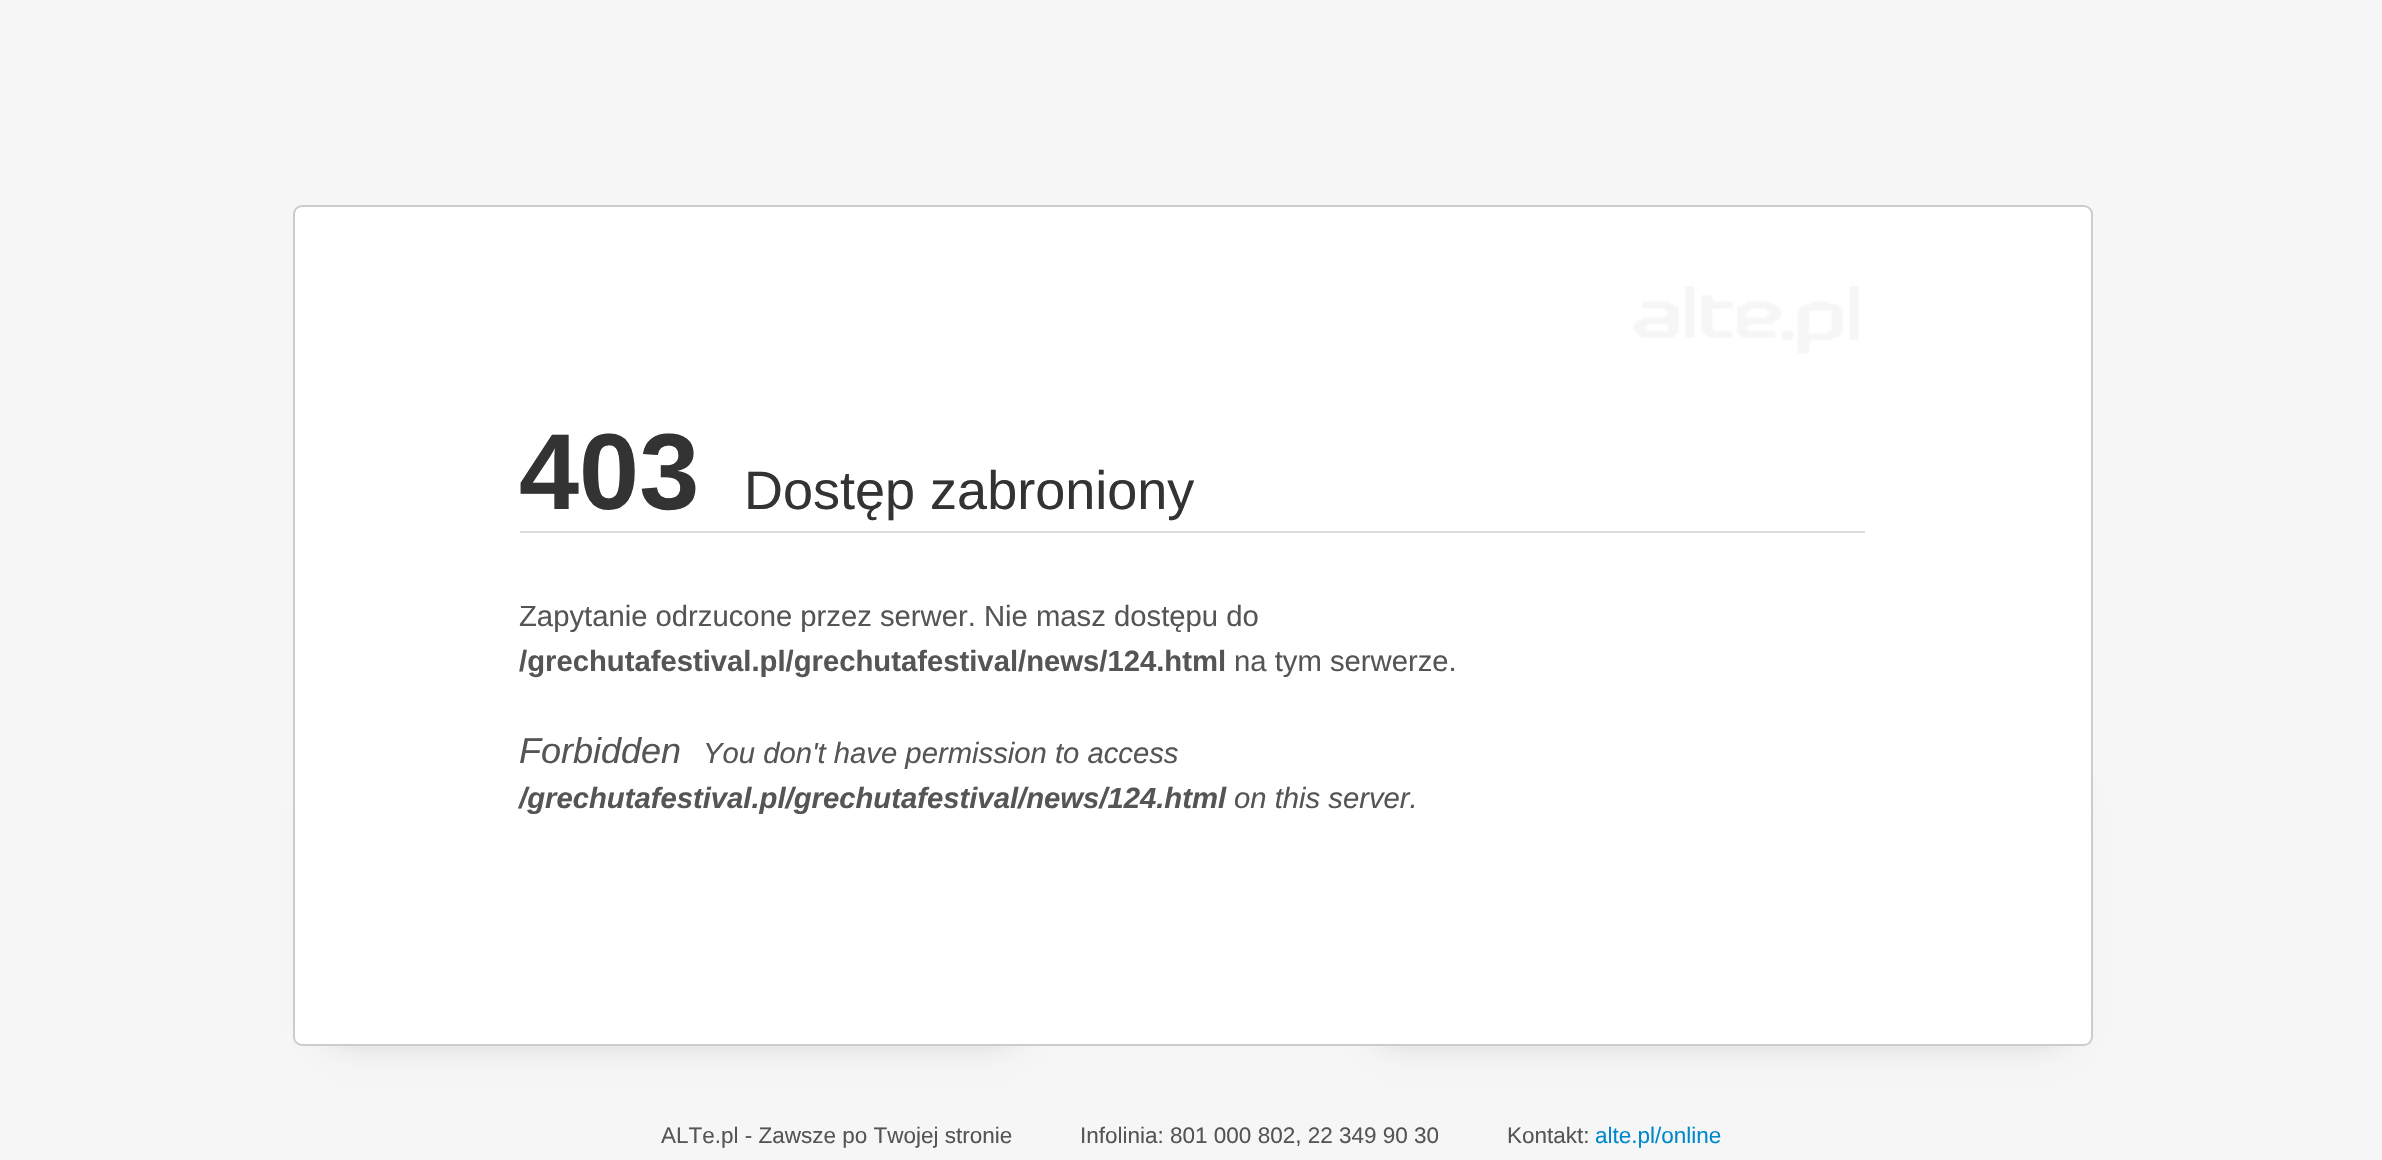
void draw(SkCanvas* canvas) {
  SkPaint paint;
  paint.setAntiAlias(true);
  auto face = [&](const char* family, int weight, float size, bool italic = false) {
    SkFontStyle style(weight, SkFontStyle::kNormal_Width,
      italic ? SkFontStyle::kItalic_Slant : SkFontStyle::kUpright_Slant);
    SkFont result(fontMgr->matchFamilyStyle(family, style), size);
    result.setSubpixel(true);
    return result;
  };
  auto paste = [&](const char* path, float x, float y, float w, float h) {
    auto image = SkImages::DeferredFromEncodedData(SkData::MakeFromFileName(path));
    canvas->drawImageRect(image, SkRect::MakeXYWH(x, y, w, h), SkSamplingOptions());
  };
  canvas->clear(0xfff6f6f6);
  paint.setColor(0x4d000000);
  paint.setMaskFilter(SkMaskFilter::MakeBlur(kNormal_SkBlurStyle, 18));
  canvas->drawRect(SkRect::MakeXYWH(335, 806, 675, 225), paint);
  paint.setMaskFilter(nullptr);
  paint.setMaskFilter(SkMaskFilter::MakeBlur(kNormal_SkBlurStyle, 18));
  canvas->drawRect(SkRect::MakeXYWH(1384, 806, 675, 225), paint);
  paint.setMaskFilter(nullptr);
  paint.setColor(0xffffffff);
  canvas->drawRoundRect(SkRect::MakeXYWH(293, 205, 1800, 841), 9, 9, paint);
  paste("img/1.png", 1633, 286, 226, 68);
  paint.setStroke(true);
  paint.setStrokeWidth(2);
  paint.setColor(0xffcccccc);
  canvas->drawRoundRect(SkRect::MakeXYWH(294, 206, 1798, 839), 8, 8, paint);
  paint.setStroke(false);
  paint.setColor(0xffdddddd);
  canvas->drawRect(SkRect::MakeXYWH(520, 531, 1345, 2), paint);
  auto f0 = face("Liberation Sans", 700, 108);
  paint.setColor(0xff333333);
  canvas->drawString("403", 519, 509, f0, paint);
  auto f1 = face("Liberation Sans", 400, 54);
  canvas->drawString("Dostęp zabroniony", 744, 509, f1, paint);
  auto f2 = face("Liberation Sans", 400, 29.25f);
  paint.setColor(0xff555555);
  canvas->drawString("Zapytanie odrzucone przez serwer. Nie masz dostępu do", 519, 626, f2, paint);
  auto f3 = face("Liberation Sans", 700, 29.25f);
  canvas->drawString("/grechutafestival.pl/grechutafestival/news/124.html", 519, 671, f3, paint);
  canvas->drawString("na tym serwerze.", 1234, 671, f2, paint);
  auto f4 = face("Liberation Sans", 400, 36, true);
  canvas->drawString("Forbidden", 519, 763, f4, paint);
  auto f5 = face("Liberation Sans", 400, 29.25f, true);
  canvas->drawString("You don't have permission to access", 703, 763, f5, paint);
  auto f6 = face("Liberation Sans", 700, 29.25f, true);
  canvas->drawString("/grechutafestival.pl/grechutafestival/news/124.html", 519, 808, f6, paint);
  canvas->drawString("on this server.", 1234, 808, f5, paint);
  auto f7 = face("Liberation Sans", 400, 22.5f);
  {
    const struct { const char* s; float x, y; } items[] = {
      {"ALTe.pl - Zawsze po Twojej stronie", 661, 1143},
      {"Infolinia: 801 000 802, 22 349 90 30", 1080, 1143},
      {"Kontakt:", 1507, 1143},
    };
    for (auto [s, x, y] : items) {
      canvas->drawString(s, x, y, f7, paint);
    }
  }
  paint.setColor(0xff0088cc);
  canvas->drawString("alte.pl/online", 1595, 1143, f7, paint);
}
